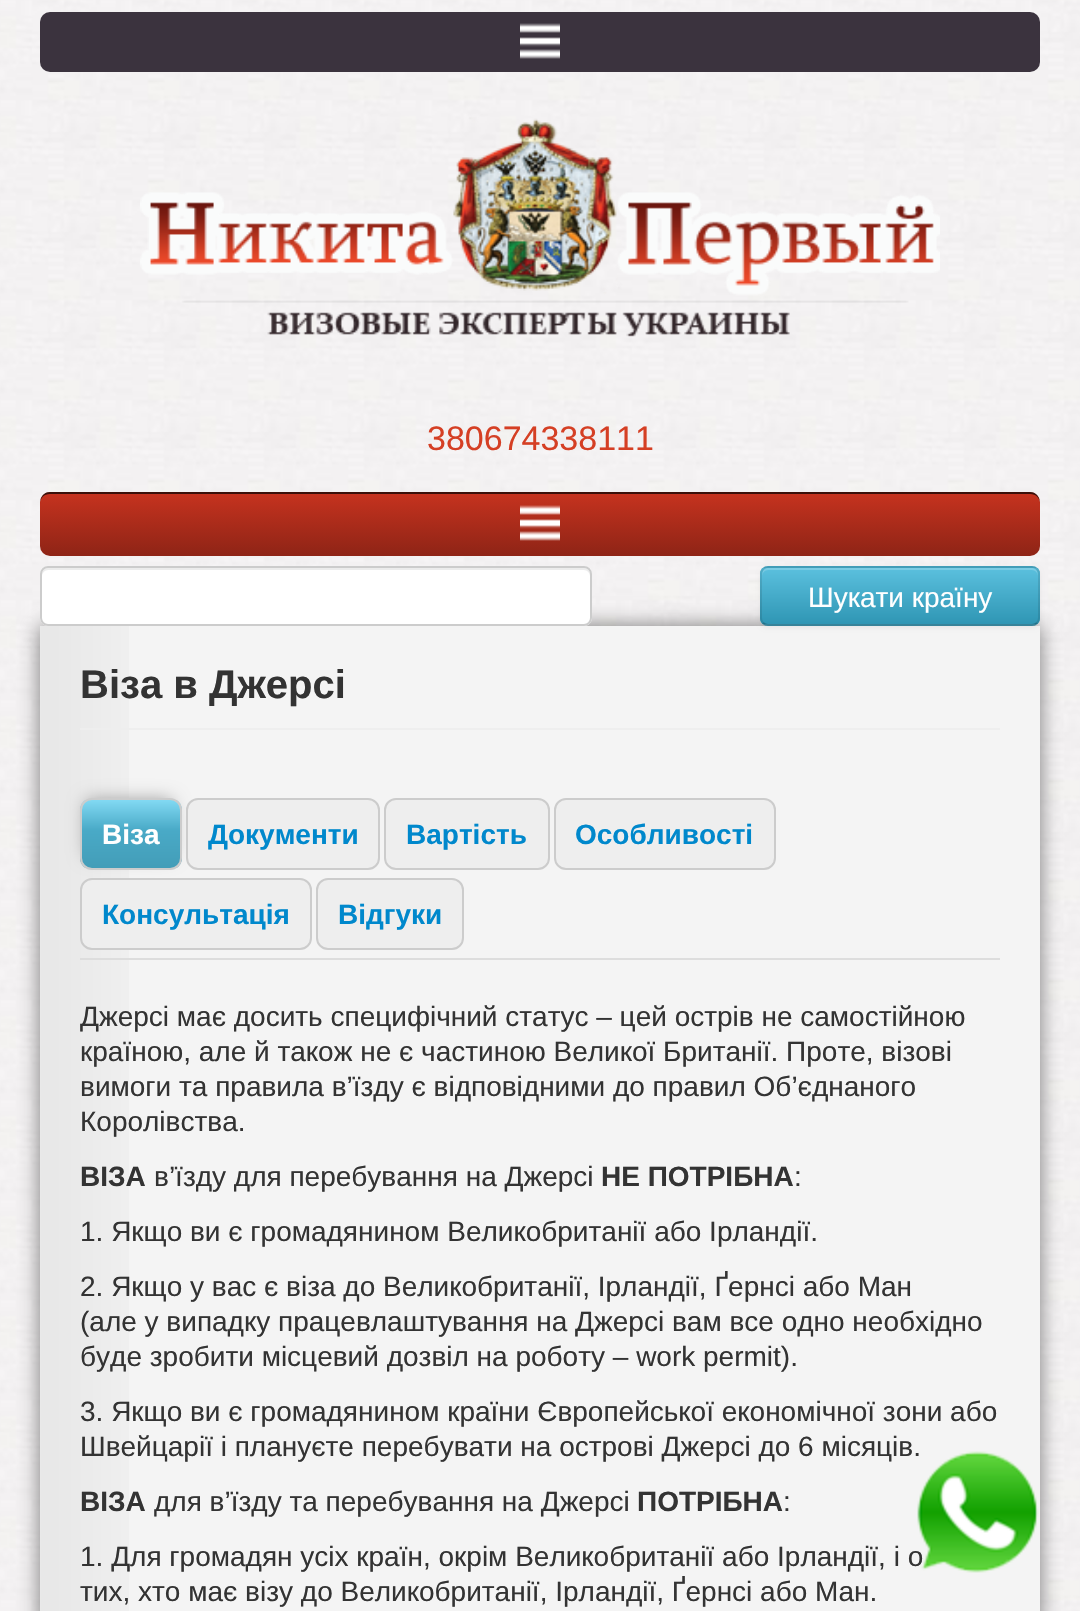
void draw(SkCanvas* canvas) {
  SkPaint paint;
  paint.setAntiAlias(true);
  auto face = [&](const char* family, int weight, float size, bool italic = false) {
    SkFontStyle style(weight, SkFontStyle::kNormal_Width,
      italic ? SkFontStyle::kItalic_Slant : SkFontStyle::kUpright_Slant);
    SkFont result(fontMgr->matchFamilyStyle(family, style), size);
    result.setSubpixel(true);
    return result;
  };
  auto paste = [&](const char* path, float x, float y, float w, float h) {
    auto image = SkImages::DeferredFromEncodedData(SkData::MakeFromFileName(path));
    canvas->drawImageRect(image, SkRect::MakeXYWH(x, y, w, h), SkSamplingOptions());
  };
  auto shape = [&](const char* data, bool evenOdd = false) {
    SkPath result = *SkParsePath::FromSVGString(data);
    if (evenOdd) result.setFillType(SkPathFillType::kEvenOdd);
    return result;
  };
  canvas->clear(0xffffffff);
  paste("img/1.png", 0, 0, 1080, 1611);
  paint.setColor(0xff3b333e);
  canvas->drawRoundRect(SkRect::MakeXYWH(40, 12, 1000, 60), 10, 10, paint);
  paste("img/2.png", 520, 23, 40, 36);
  paste("img/3.png", 140, 117, 800, 220);
  paste("img/4.png", 40, 492, 1000, 64);
  paint.setColor(0xb3000000);
  canvas->drawPath(shape("M50 494H1030C1036 494 1040 498 1040 504C1040 498 1037 492 1030 492H50C43 492 40 498 40 504C40 498 44 494 50 494Z"), paint);
  paint.setColor(0x80000000);
  paint.setMaskFilter(SkMaskFilter::MakeBlur(kNormal_SkBlurStyle, 10));
  canvas->drawRect(SkRect::MakeXYWH(40, 626, 1000, 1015), paint);
  paint.setMaskFilter(nullptr);
  paint.setColor(0xffffffff);
  canvas->drawRoundRect(SkRect::MakeXYWH(40, 566, 552, 60), 8, 8, paint);
  paint.setColor(0xffececec);
  canvas->drawPath(shape("M48 570H584C587 570 590 573 590 576V574C590 571 587 568 584 568H48C45 568 42 571 42 574V576C42 573 45 570 48 570Z"), paint);
  paint.setStroke(true);
  paint.setStrokeWidth(2);
  paint.setColor(0xffcccccc);
  canvas->drawRoundRect(SkRect::MakeXYWH(41, 567, 550, 58), 7, 7, paint);
  paint.setStroke(false);
  paint.setColor(0xfff4f4f4);
  canvas->drawRect(SkRect::MakeXYWH(129, 626, 911, 985), paint);
  paint.setColor(0x0d000000);
  paint.setMaskFilter(SkMaskFilter::MakeBlur(kNormal_SkBlurStyle, 2));
  canvas->drawRoundRect(SkRect::MakeXYWH(760, 568, 280, 60), 8, 8, paint);
  paint.setMaskFilter(nullptr);
  paint.setColor(0xff49afcd);
  canvas->drawRoundRect(SkRect::MakeXYWH(760, 566, 280, 60), 8, 8, paint);
  canvas->save();
  canvas->clipPath(shape("M768 566H1032C1036.5 566 1040 569.5 1040 574V618C1040 622.5 1036.5 626 1032 626H768C763.5 626 760 622.5 760 618V574C760 569.5 763.5 566 768 566Z"), true);
  {
    const SkColor colors[] = {0xff5bc0de, 0xff2f96b4};
    const float stops[] = {0, 1};
    const SkPoint ends[] = {{900, 568}, {900, 624}};
    paint.setShader(SkGradientShader::MakeLinear(ends, colors, stops, 2, SkTileMode::kClamp));
    paint.setAlpha(255);
  }
  canvas->drawRect(SkRect::MakeXYWH(760, 568, 280, 56), paint);
  canvas->restore();
  paint.setShader(nullptr);
  paint.setColor(0x33ffffff);
  canvas->drawPath(shape("M768 570H1032C1035 570 1038 573 1038 576C1038 573 1037 569 1033 568H767C763 569 762 573 762 576C762 573 765 570 768 570Z"), paint);
  paint.setStroke(true);
  paint.setColor(0x40000000);
  canvas->drawPath(shape("M1037 623C1035.5 624.5 1034 625 1032 625H768C766 625 764.5 624.5 763 623"), paint);
  paint.setColor(0x1a000000);
  canvas->drawPath(shape("M763 623C761.5 621.5 761 620 761 618V574C761 572 761.5 570.5 763 569C764.5 567.5 766 567 768 567H1032C1034 567 1035.5 567.5 1037 569C1038.5 570.5 1039 572 1039 574V618C1039 620 1038.5 621.5 1037 623"), paint);
  paste("img/5.png", 40, 626, 89, 985);
  paint.setStroke(false);
  paint.setColor(0xffeeeeee);
  canvas->drawRect(SkRect::MakeXYWH(80, 728, 920, 2), paint);
  paint.setColor(0xffdddddd);
  canvas->drawRect(SkRect::MakeXYWH(80, 958, 920, 2), paint);
  paint.setColor(0xff989898);
  paint.setMaskFilter(SkMaskFilter::MakeBlur(kNormal_SkBlurStyle, 9));
  canvas->drawRoundRect(SkRect::MakeXYWH(86, 800, 86, 56), 4, 4, paint);
  paint.setMaskFilter(nullptr);
  canvas->save();
  canvas->clipPath(shape("M92 798H170C176.5 798 182 803.5 182 810V858C182 864.5 176.5 870 170 870H92C85.5 870 80 864.5 80 858V810C80 803.5 85.5 798 92 798Z"), true);
  {
    const SkColor colors[] = {0xff82d9f3, 0xff49aac7, 0xff439db8};
    const float stops[] = {0, 0.44f, 1};
    const SkPoint ends[] = {{131, 800}, {131, 868}};
    paint.setShader(SkGradientShader::MakeLinear(ends, colors, stops, 3, SkTileMode::kClamp));
    paint.setAlpha(255);
  }
  canvas->drawRect(SkRect::MakeXYWH(80, 800, 102, 68), paint);
  canvas->restore();
  paint.setStroke(true);
  paint.setShader(nullptr);
  paint.setColor(0xffcccccc);
  canvas->drawRoundRect(SkRect::MakeXYWH(81, 799, 100, 70), 11, 11, paint);
  paint.setStroke(false);
  paint.setColor(0xffeeeeee);
  canvas->drawRoundRect(SkRect::MakeXYWH(187, 799, 192, 70), 11, 11, paint);
  paint.setStroke(true);
  paint.setColor(0xffcccccc);
  canvas->drawRoundRect(SkRect::MakeXYWH(187, 799, 192, 70), 11, 11, paint);
  paint.setStroke(false);
  paint.setColor(0xffeeeeee);
  canvas->drawRoundRect(SkRect::MakeXYWH(385, 799, 164, 70), 11, 11, paint);
  paint.setStroke(true);
  paint.setColor(0xffcccccc);
  canvas->drawRoundRect(SkRect::MakeXYWH(385, 799, 164, 70), 11, 11, paint);
  paint.setStroke(false);
  paint.setColor(0xffeeeeee);
  canvas->drawRoundRect(SkRect::MakeXYWH(555, 799, 220, 70), 11, 11, paint);
  paint.setStroke(true);
  paint.setColor(0xffcccccc);
  canvas->drawRoundRect(SkRect::MakeXYWH(555, 799, 220, 70), 11, 11, paint);
  paint.setStroke(false);
  paint.setColor(0xffeeeeee);
  canvas->drawRoundRect(SkRect::MakeXYWH(81, 879, 230, 70), 11, 11, paint);
  paint.setStroke(true);
  paint.setColor(0xffcccccc);
  canvas->drawRoundRect(SkRect::MakeXYWH(81, 879, 230, 70), 11, 11, paint);
  paint.setStroke(false);
  paint.setColor(0xffeeeeee);
  canvas->drawRoundRect(SkRect::MakeXYWH(317, 879, 146, 70), 11, 11, paint);
  paint.setStroke(true);
  paint.setColor(0xffcccccc);
  canvas->drawRoundRect(SkRect::MakeXYWH(317, 879, 146, 70), 11, 11, paint);
  auto f0 = face("Liberation Sans", 400, 34);
  paint.setStroke(false);
  paint.setColor(0xffd53f24);
  canvas->drawString("380674338111", 427, 450, f0, paint);
  auto f1 = face("Liberation Sans", 400, 28);
  paint.setColor(0xffffffff);
  canvas->drawString("Шукати країну", 808, 607, f1, paint);
  auto f2 = face("Liberation Sans", 700, 40);
  paint.setColor(0xff333333);
  canvas->drawString("Віза в Джерсі", 80, 698, f2, paint);
  auto f3 = face("Liberation Sans", 700, 28);
  paint.setColor(0xffffffff);
  canvas->drawString("Віза", 102, 844, f3, paint);
  paint.setColor(0xff0088cc);
  {
    const struct { const char* s; float x, y; } items[] = {
      {"Документи", 208, 844},
      {"Вартість", 406, 844},
      {"Особливості", 575, 844},
      {"Консультація", 102, 924},
      {"Відгуки", 338, 924},
    };
    for (auto [s, x, y] : items) {
      canvas->drawString(s, x, y, f3, paint);
    }
  }
  paint.setColor(0xff333333);
  {
    const struct { const char* s; float x, y; } items[] = {
      {"Джерсі має досить специфічний статус – цей острів не самостійною", 80, 1026},
      {"країною, але й також не є частиною Великої Британії. Проте, візові", 80, 1061},
      {"вимоги та правила в’їзду є відповідними до правил Об’єднаного", 80, 1096},
      {"Королівства.", 80, 1131},
    };
    for (auto [s, x, y] : items) {
      canvas->drawString(s, x, y, f1, paint);
    }
  }
  canvas->drawString("ВІЗА", 80, 1186, f3, paint);
  canvas->drawString("в’їзду для перебування на Джерсі", 154, 1186, f1, paint);
  canvas->drawString("НЕ ПОТРІБНА", 601, 1186, f3, paint);
  {
    const struct { const char* s; float x, y; } items[] = {
      {":", 794, 1186},
      {"1. Якщо ви є громадянином Великобританії або Ірландії.", 80, 1241},
      {"2. Якщо у вас є віза до Великобританії, Ірландії, Ґернсі або Ман", 80, 1296},
      {"(але у випадку працевлаштування на Джерсі вам все одно необхідно", 80, 1331},
      {"буде зробити місцевий дозвіл на роботу – work permit).", 80, 1366},
      {"3. Якщо ви є громадянином країни Європейської економічної зони або", 80, 1421},
      {"Швейцарії і плануєте перебувати на острові Джерсі до 6 місяців.", 80, 1456},
    };
    for (auto [s, x, y] : items) {
      canvas->drawString(s, x, y, f1, paint);
    }
  }
  canvas->drawString("ВІЗА", 80, 1511, f3, paint);
  canvas->drawString("для в’їзду та перебування на Джерсі", 154, 1511, f1, paint);
  canvas->drawString("ПОТРІБНА", 637, 1511, f3, paint);
  {
    const struct { const char* s; float x, y; } items[] = {
      {":", 783, 1511},
      {"1. Для громадян усіх країн, окрім Великобританії або Ірландії, і о", 80, 1566},
      {"тих, хто має візу до Великобританії, Ірландії, Ґернсі або Ман.", 80, 1601},
    };
    for (auto [s, x, y] : items) {
      canvas->drawString(s, x, y, f1, paint);
    }
  }
  paste("img/6.png", 917, 1451, 122, 122);
}
